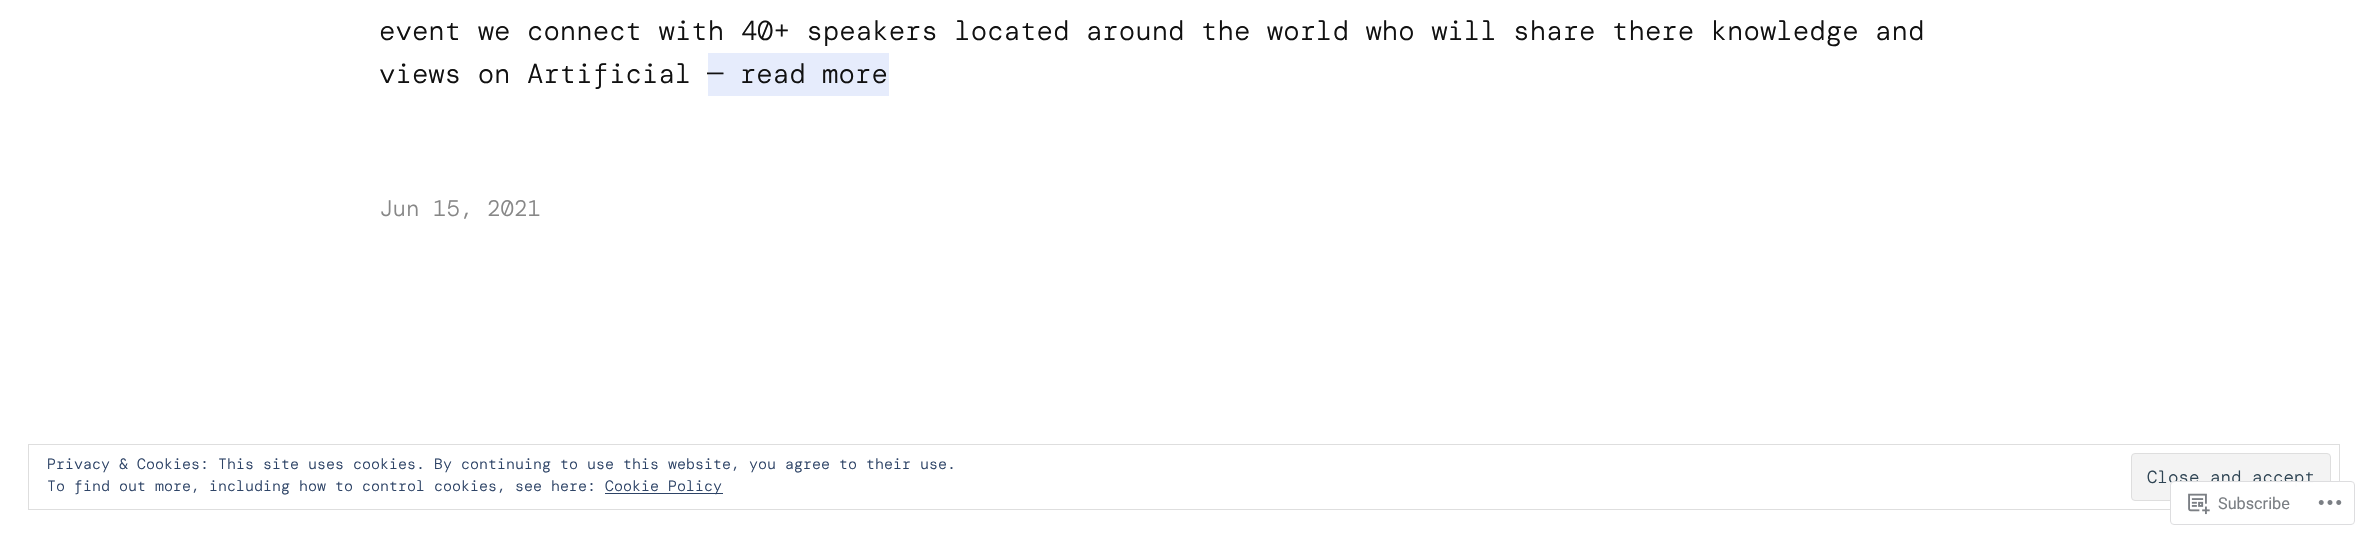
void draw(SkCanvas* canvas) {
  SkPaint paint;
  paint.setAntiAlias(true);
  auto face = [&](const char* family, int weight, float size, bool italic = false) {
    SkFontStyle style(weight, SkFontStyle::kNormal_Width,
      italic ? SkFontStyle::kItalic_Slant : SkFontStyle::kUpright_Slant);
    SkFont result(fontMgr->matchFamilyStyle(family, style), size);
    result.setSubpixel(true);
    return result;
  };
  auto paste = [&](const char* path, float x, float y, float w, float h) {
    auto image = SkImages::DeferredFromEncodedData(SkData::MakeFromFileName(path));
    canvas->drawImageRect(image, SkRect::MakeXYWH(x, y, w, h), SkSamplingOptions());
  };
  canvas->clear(0xffffffff);
  paint.setColor(0xffe6ecfc);
  canvas->drawRect(SkRect::MakeXYWH(708, 53, 181, 43), paint);
  paint.setStroke(true);
  paint.setStrokeWidth(1);
  paint.setColor(0xffdedede);
  canvas->drawRect(SkRect::MakeXYWH(28.5f, 444.5f, 2311, 65), paint);
  paint.setStroke(false);
  paint.setColor(0xff2e4467);
  canvas->drawRect(SkRect::MakeXYWH(605, 493, 118, 1), paint);
  paint.setColor(0xfff3f3f3);
  canvas->drawRoundRect(SkRect::MakeXYWH(2131.5f, 453.5f, 199, 47), 3.5f, 3.5f, paint);
  paint.setStroke(true);
  paint.setColor(0xffdedede);
  canvas->drawRoundRect(SkRect::MakeXYWH(2131.5f, 453.5f, 199, 47), 3.5f, 3.5f, paint);
  auto f0 = face("DM Mono", 300, 27.4f);
  paint.setStroke(false);
  paint.setColor(0xff111111);
  {
    const struct { const char* s; float x, y; } items[] = {
      {"event we connect with 40+ speakers located around the world who will share there knowledge and", 379, 40},
      {"views on Artificial", 379, 83},
      {"— read more", 707, 83},
    };
    for (auto [s, x, y] : items) {
      canvas->drawString(s, x, y, f0, paint);
    }
  }
  auto f1 = face("DM Mono", 300, 22.5f);
  paint.setColor(0xff878787);
  canvas->drawString("Jun 15, 2021", 379, 216, f1, paint);
  auto f2 = face("DM Mono", 300, 15);
  paint.setColor(0xff2e4467);
  {
    const struct { const char* s; float x, y; } items[] = {
      {"Privacy & Cookies: This site uses cookies. By continuing to use this website, you agree to their use.", 47, 469},
      {"To find out more, including how to control cookies, see here:", 47, 491},
      {"Cookie Policy", 605, 491},
    };
    for (auto [s, x, y] : items) {
      canvas->drawString(s, x, y, f2, paint);
    }
  }
  auto f3 = face("DM Mono", 300, 17.5f);
  paint.setColor(0xff2e4453);
  canvas->drawString("Close and accept", 2147, 483, f3, paint);
  paint.setColor(0xfaffffff);
  canvas->drawRoundRect(SkRect::MakeXYWH(2170, 481, 185, 44), 4, 4, paint);
  paint.setStroke(true);
  paint.setColor(0xfadcdcde);
  canvas->drawRoundRect(SkRect::MakeXYWH(2170.5f, 481.5f, 184, 43), 3.5f, 3.5f, paint);
  paste("img/1.png", 2188, 493, 22, 22);
  auto f4 = face("Roboto", 400, 16.25f);
  paint.setStroke(false);
  paint.setColor(0xff7b7f84);
  canvas->drawString("Subscribe", 2218, 509, f4, paint);
  paste("img/2.png", 2318, 500, 24, 5);
}
